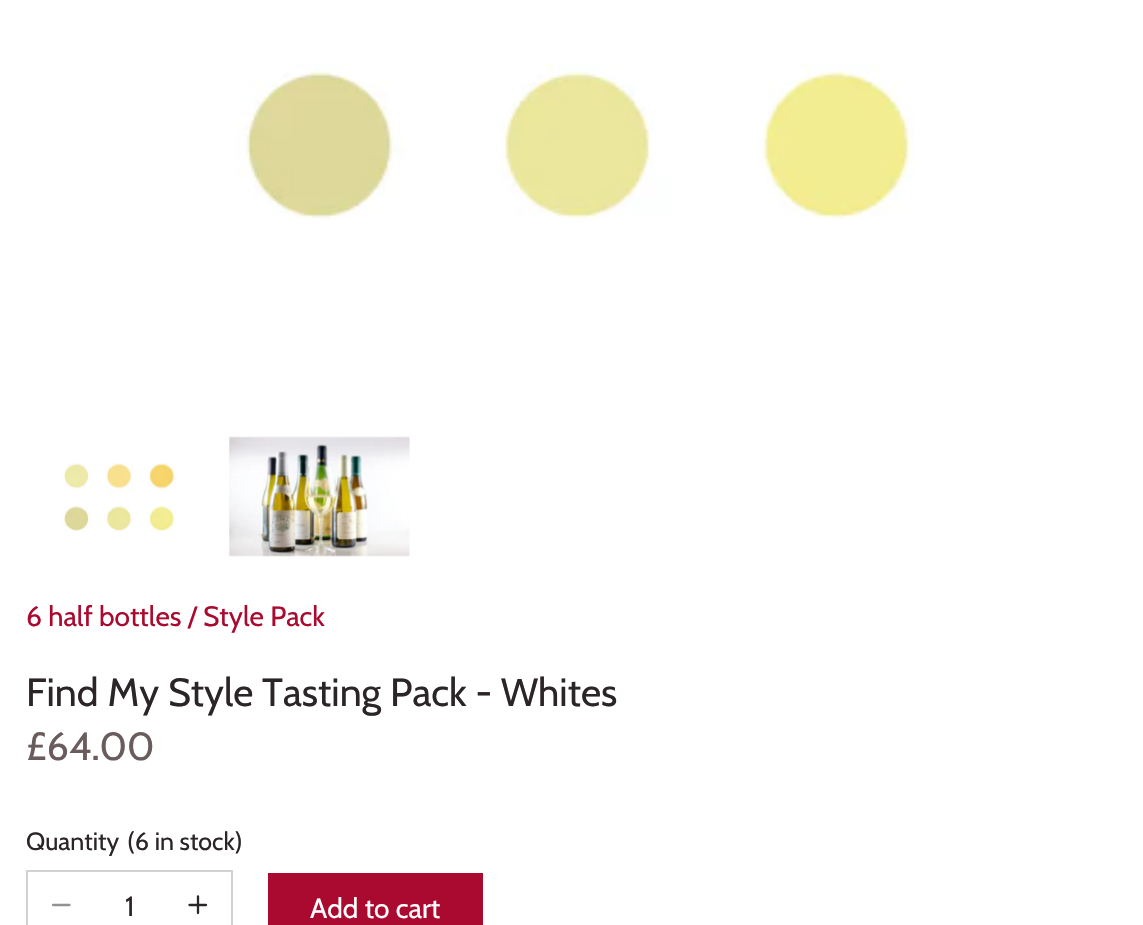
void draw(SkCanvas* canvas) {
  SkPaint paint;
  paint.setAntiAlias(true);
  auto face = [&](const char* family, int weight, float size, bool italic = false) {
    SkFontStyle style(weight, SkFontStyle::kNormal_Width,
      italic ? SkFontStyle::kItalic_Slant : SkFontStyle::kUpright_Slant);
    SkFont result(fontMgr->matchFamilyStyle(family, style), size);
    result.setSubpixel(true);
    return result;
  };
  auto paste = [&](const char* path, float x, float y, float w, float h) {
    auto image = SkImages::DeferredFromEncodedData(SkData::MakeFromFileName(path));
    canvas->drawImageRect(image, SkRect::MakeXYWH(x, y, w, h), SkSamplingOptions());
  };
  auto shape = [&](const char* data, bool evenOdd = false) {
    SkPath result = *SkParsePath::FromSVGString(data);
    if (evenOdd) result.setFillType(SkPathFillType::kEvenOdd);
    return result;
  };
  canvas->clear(0xffffffff);
  paste("img/1.png", 235, 63, 680, 156);
  paste("img/2.png", 60, 463, 118, 69);
  paste("img/3.png", 229, 436, 181, 121);
  paint.setStroke(true);
  paint.setStrokeWidth(2);
  paint.setColor(0xffd3d1d2);
  canvas->drawRect(SkRect::MakeXYWH(27, 871, 205, 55), paint);
  paint.setStrokeWidth(2.3f);
  paint.setStrokeCap(SkPaint::kRound_Cap);
  paint.setStrokeJoin(SkPaint::kRound_Join);
  paint.setColor(0xff969294);
  canvas->drawPath(shape("M53 905H69.5"), paint);
  paint.setColor(0xff2c2528);
  canvas->drawPath(shape("M198 896.5V913M189.5 905H206"), paint);
  paint.setStroke(false);
  paint.setColor(0xffaa0a2f);
  canvas->drawRect(SkRect::MakeXYWH(268, 873, 215, 52), paint);
  auto f0 = face("Cabin", 400, 28);
  canvas->drawString("6 half bottles / Style Pack", 26, 626, f0, paint);
  auto f1 = face("Cabin", 400, 39.25f);
  paint.setColor(0xff2c2528);
  canvas->drawString("Find My Style Tasting Pack - Whites", 26, 706, f1, paint);
  paint.setColor(0xff6a5b5c);
  canvas->drawString("£64.00", 26, 760, f1, paint);
  auto f2 = face("Cabin", 400, 25);
  paint.setColor(0xff2c2528);
  canvas->drawString("Quantity", 26, 850, f2, paint);
  canvas->drawString("(6 in stock)", 127, 850, f2, paint);
  canvas->drawString("1", 125, 916, f0, paint);
  paint.setColor(0xffffffff);
  canvas->drawString("Add to cart", 310, 918, f0, paint);
}
